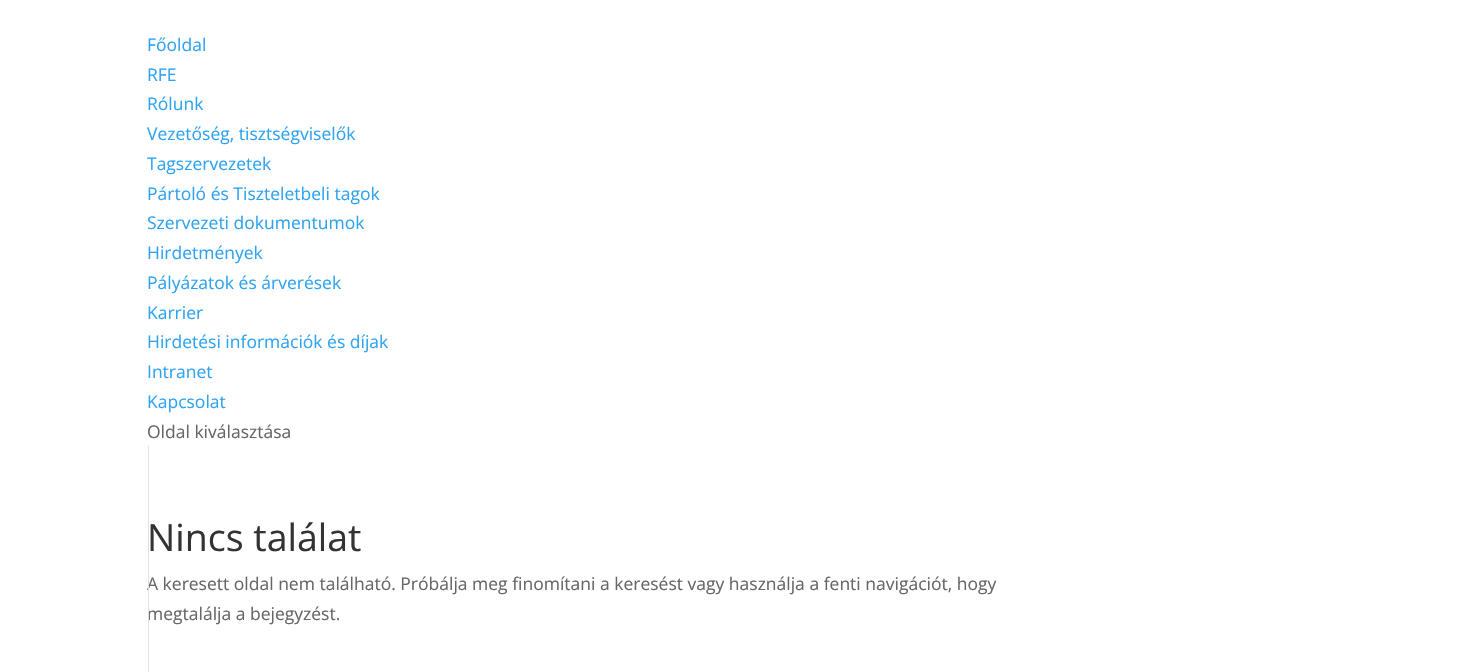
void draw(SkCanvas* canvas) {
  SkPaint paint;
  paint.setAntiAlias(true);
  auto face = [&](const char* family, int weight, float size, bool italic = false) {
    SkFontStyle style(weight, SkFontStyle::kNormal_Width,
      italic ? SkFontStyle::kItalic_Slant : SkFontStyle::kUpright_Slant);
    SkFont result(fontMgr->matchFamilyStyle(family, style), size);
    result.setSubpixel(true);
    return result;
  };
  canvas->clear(0xffffffff);
  auto f0 = face("Open Sans", 400, 17.5f);
  paint.setColor(0xff2ea3f2);
  {
    const struct { const char* s; float x, y; } items[] = {
      {"Főoldal", 147, 51},
      {"RFE", 147, 81},
      {"Rólunk", 147, 110},
      {"Vezetőség, tisztségviselők", 147, 140},
      {"Tagszervezetek", 147, 170},
      {"Pártoló és Tiszteletbeli tagok", 147, 200},
      {"Szervezeti dokumentumok", 147, 229},
      {"Hirdetmények", 147, 259},
      {"Pályázatok és árverések", 147, 289},
      {"Karrier", 147, 319},
      {"Hirdetési információk és díjak", 147, 348},
      {"Intranet", 147, 378},
      {"Kapcsolat", 147, 408},
    };
    for (auto [s, x, y] : items) {
      canvas->drawString(s, x, y, f0, paint);
    }
  }
  paint.setColor(0xff666666);
  canvas->drawString("Oldal kiválasztása", 147, 438, f0, paint);
  auto f1 = face("Open Sans", 400, 37.5f);
  paint.setColor(0xff333333);
  canvas->drawString("Nincs találat", 147, 551, f1, paint);
  paint.setColor(0xff666666);
  canvas->drawString("A keresett oldal nem található. Próbálja meg finomítani a keresést vagy használja a fenti navigációt, hogy", 147, 590, f0, paint);
  canvas->drawString("megtalálja a bejegyzést.", 147, 620, f0, paint);
  paint.setColor(0xffe2e2e2);
  canvas->drawRect(SkRect::MakeXYWH(148, 446, 1, 226), paint);
}
